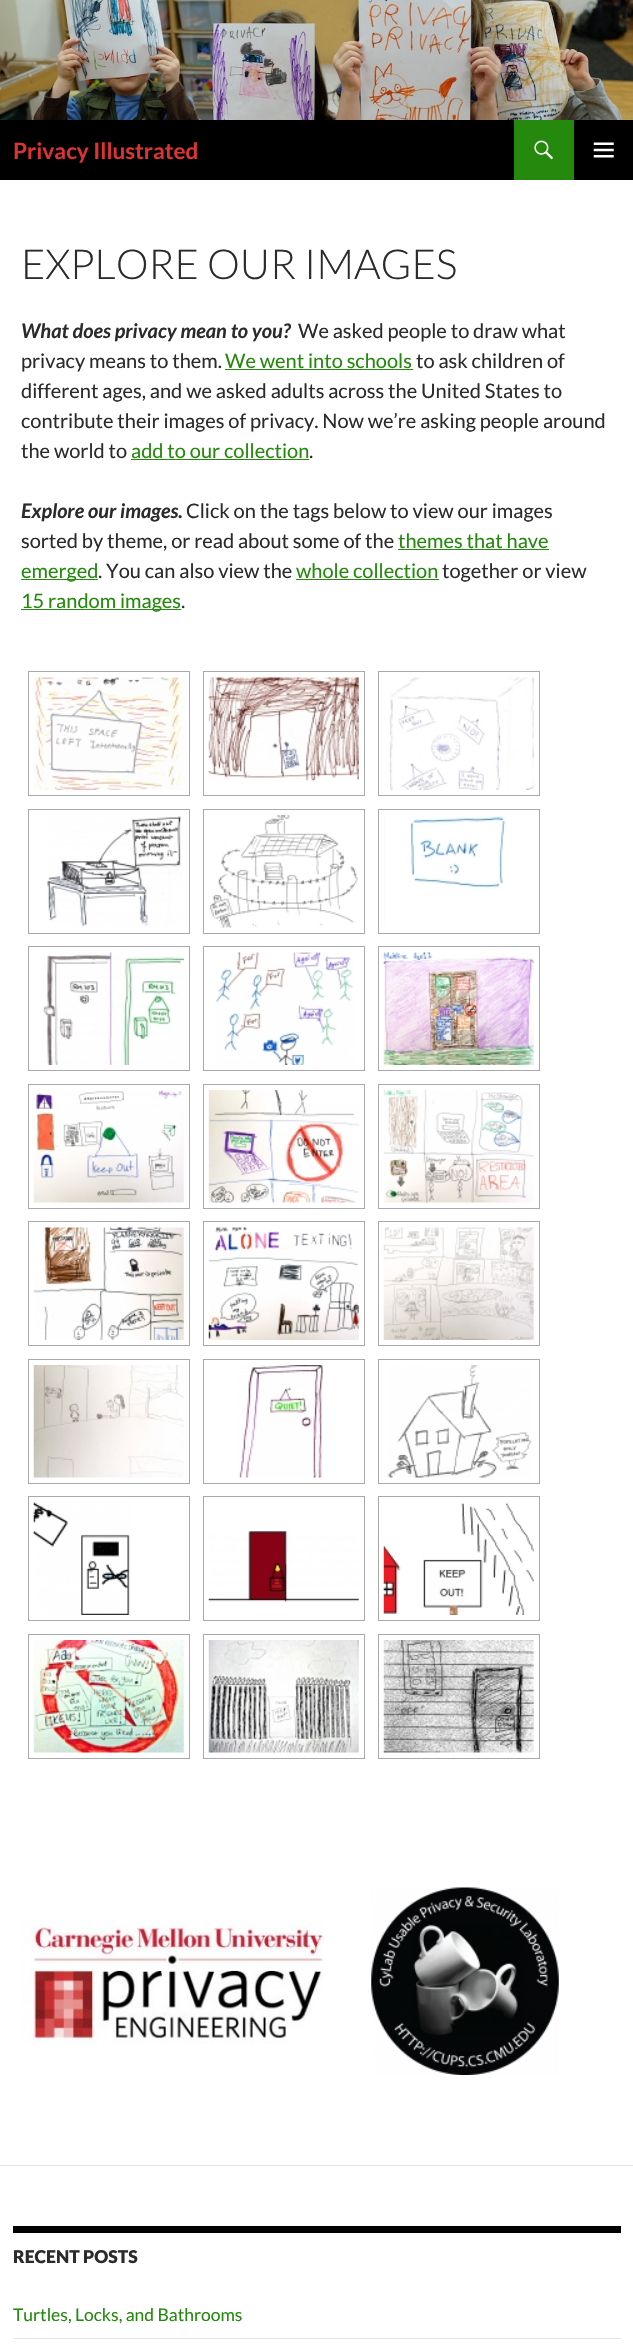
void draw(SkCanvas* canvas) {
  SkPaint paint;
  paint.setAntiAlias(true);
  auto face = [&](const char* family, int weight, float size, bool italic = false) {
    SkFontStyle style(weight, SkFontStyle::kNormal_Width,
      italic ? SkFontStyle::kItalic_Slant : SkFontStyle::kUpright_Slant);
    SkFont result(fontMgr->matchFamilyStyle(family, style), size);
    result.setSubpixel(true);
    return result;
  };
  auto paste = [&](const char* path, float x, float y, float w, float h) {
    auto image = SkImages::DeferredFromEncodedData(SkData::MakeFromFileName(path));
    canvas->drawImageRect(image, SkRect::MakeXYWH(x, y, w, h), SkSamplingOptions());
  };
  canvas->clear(0xffffffff);
  paste("img/1.png", 0, 0, 633, 120);
  paint.setColor(0xff000000);
  canvas->drawRect(SkRect::MakeXYWH(0, 120, 633, 60), paint);
  paint.setColor(0xff24890d);
  canvas->drawRect(SkRect::MakeXYWH(514, 120, 60, 60), paint);
  paste("img/2.png", 534, 140, 19, 20);
  paste("img/3.png", 593, 142, 21, 16);
  {
    const struct { float x, y, w, h; SkColor color; } items[] = {
      {225, 369, 188, 1, 0xff24890d},
      {131, 459, 178, 1, 0xff24890d},
      {398, 549, 151, 1, 0xff24890d},
      {21, 579, 77, 1, 0xff24890d},
      {296, 579, 143, 1, 0xff24890d},
      {21, 609, 160, 1, 0xff24890d},
    };
    for (auto [x, y, w, h, color] : items) {
      paint.setColor(color);
      canvas->drawRect(SkRect::MakeXYWH(x, y, w, h), paint);
    }
  }
  paint.setStroke(true);
  paint.setStrokeWidth(1);
  paint.setColor(0xffa9a9a9);
  canvas->drawRect(SkRect::MakeXYWH(28.5f, 671.5f, 161, 124), paint);
  paste("img/4.png", 34, 677, 150, 113);
  canvas->drawRect(SkRect::MakeXYWH(203.5f, 671.5f, 161, 124), paint);
  paste("img/5.png", 208, 677, 151, 105);
  canvas->drawRect(SkRect::MakeXYWH(378.5f, 671.5f, 161, 124), paint);
  paste("img/6.png", 389, 677, 145, 113);
  canvas->drawRect(SkRect::MakeXYWH(28.5f, 809.5f, 161, 124), paint);
  paste("img/7.png", 47, 816, 136, 111);
  canvas->drawRect(SkRect::MakeXYWH(203.5f, 809.5f, 161, 124), paint);
  paste("img/8.png", 209, 815, 149, 113);
  canvas->drawRect(SkRect::MakeXYWH(378.5f, 809.5f, 161, 124), paint);
  paste("img/9.png", 384, 815, 122, 112);
  canvas->drawRect(SkRect::MakeXYWH(28.5f, 946.5f, 161, 124), paint);
  paste("img/10.png", 43, 952, 141, 113);
  canvas->drawRect(SkRect::MakeXYWH(203.5f, 946.5f, 161, 124), paint);
  paste("img/11.png", 216, 952, 138, 113);
  canvas->drawRect(SkRect::MakeXYWH(378.5f, 946.5f, 161, 124), paint);
  paste("img/12.png", 383, 952, 151, 113);
  canvas->drawRect(SkRect::MakeXYWH(28.5f, 1084.5f, 161, 124), paint);
  paste("img/13.png", 33, 1090, 151, 113);
  canvas->drawRect(SkRect::MakeXYWH(203.5f, 1084.5f, 161, 124), paint);
  paste("img/14.png", 208, 1090, 151, 113);
  canvas->drawRect(SkRect::MakeXYWH(378.5f, 1084.5f, 161, 124), paint);
  paste("img/15.png", 383, 1090, 151, 113);
  canvas->drawRect(SkRect::MakeXYWH(28.5f, 1221.5f, 161, 124), paint);
  paste("img/16.png", 33, 1227, 151, 113);
  canvas->drawRect(SkRect::MakeXYWH(203.5f, 1221.5f, 161, 124), paint);
  paste("img/17.png", 208, 1227, 151, 113);
  canvas->drawRect(SkRect::MakeXYWH(378.5f, 1221.5f, 161, 124), paint);
  paste("img/18.png", 383, 1227, 151, 113);
  canvas->drawRect(SkRect::MakeXYWH(28.5f, 1359.5f, 161, 124), paint);
  paste("img/19.png", 33, 1365, 151, 113);
  canvas->drawRect(SkRect::MakeXYWH(203.5f, 1359.5f, 161, 124), paint);
  paste("img/20.png", 238, 1365, 85, 113);
  canvas->drawRect(SkRect::MakeXYWH(378.5f, 1359.5f, 161, 124), paint);
  paste("img/21.png", 387, 1365, 145, 113);
  canvas->drawRect(SkRect::MakeXYWH(28.5f, 1496.5f, 161, 124), paint);
  paste("img/22.png", 33, 1502, 98, 113);
  canvas->drawRect(SkRect::MakeXYWH(203.5f, 1496.5f, 161, 124), paint);
  paste("img/23.png", 208, 1531, 151, 71);
  canvas->drawRect(SkRect::MakeXYWH(378.5f, 1496.5f, 161, 124), paint);
  paste("img/24.png", 383, 1502, 151, 113);
  canvas->drawRect(SkRect::MakeXYWH(28.5f, 1634.5f, 161, 124), paint);
  paste("img/25.png", 33, 1640, 151, 113);
  canvas->drawRect(SkRect::MakeXYWH(203.5f, 1634.5f, 161, 124), paint);
  paste("img/26.png", 208, 1640, 151, 113);
  canvas->drawRect(SkRect::MakeXYWH(378.5f, 1634.5f, 161, 124), paint);
  paste("img/27.png", 383, 1640, 151, 113);
  paste("img/28.png", 21, 1920, 303, 124);
  paste("img/29.png", 371, 1887, 188, 188);
  paint.setStroke(false);
  {
    const struct { float x, y, w, h; SkColor color; } items[] = {
      {0, 2165, 633, 1, 0xffe6e6e6},
      {13, 2226, 608, 7, 0xff000000},
      {13, 2338, 608, 1, 0xffe6e6e6},
    };
    for (auto [x, y, w, h, color] : items) {
      paint.setColor(color);
      canvas->drawRect(SkRect::MakeXYWH(x, y, w, h), paint);
    }
  }
  auto f0 = face("Lato", 700, 22.5f);
  paint.setColor(0xffdd3333);
  canvas->drawString("Privacy Illustrated", 13, 159, f0, paint);
  auto f1 = face("Lato", 300, 41.25f);
  paint.setColor(0xff2b2b2b);
  canvas->drawString("EXPLORE OUR IMAGES", 21, 279, f1, paint);
  auto f2 = face("Lato", 700, 20, true);
  canvas->drawString("What does privacy mean to you?", 21, 338, f2, paint);
  auto f3 = face("Lato", 400, 20);
  canvas->drawString("We asked people to draw what", 298, 338, f3, paint);
  canvas->drawString("privacy means to them.", 21, 368, f3, paint);
  paint.setColor(0xff24890d);
  canvas->drawString("We went into schools", 225, 368, f3, paint);
  paint.setColor(0xff2b2b2b);
  {
    const struct { const char* s; float x, y; } items[] = {
      {"to ask children of", 416, 368},
      {"different ages, and we asked adults across the United States to", 21, 398},
      {"contribute their images of privacy. Now we’re asking people around", 21, 428},
      {"the world to", 21, 458},
    };
    for (auto [s, x, y] : items) {
      canvas->drawString(s, x, y, f3, paint);
    }
  }
  paint.setColor(0xff24890d);
  canvas->drawString("add to our collection", 131, 458, f3, paint);
  paint.setColor(0xff2b2b2b);
  canvas->drawString(".", 309, 458, f3, paint);
  canvas->drawString("Explore our images.", 21, 518, f2, paint);
  canvas->drawString("Click on the tags below to view our images", 186, 518, f3, paint);
  canvas->drawString("sorted by theme, or read about some of the", 21, 548, f3, paint);
  paint.setColor(0xff24890d);
  canvas->drawString("themes that have", 398, 548, f3, paint);
  canvas->drawString("emerged", 21, 578, f3, paint);
  paint.setColor(0xff2b2b2b);
  canvas->drawString(". You can also view the", 98, 578, f3, paint);
  paint.setColor(0xff24890d);
  canvas->drawString("whole collection", 296, 578, f3, paint);
  paint.setColor(0xff2b2b2b);
  canvas->drawString("together or view", 442, 578, f3, paint);
  paint.setColor(0xff24890d);
  canvas->drawString("15 random images", 21, 608, f3, paint);
  paint.setColor(0xff2b2b2b);
  canvas->drawString(".", 181, 608, f3, paint);
  auto f4 = face("Lato", 900, 17.5f);
  canvas->drawString("RECENT POSTS", 13, 2263, f4, paint);
  auto f5 = face("Lato", 400, 17.5f);
  paint.setColor(0xff24890d);
  canvas->drawString("Turtles, Locks, and Bathrooms", 13, 2321, f5, paint);
}
